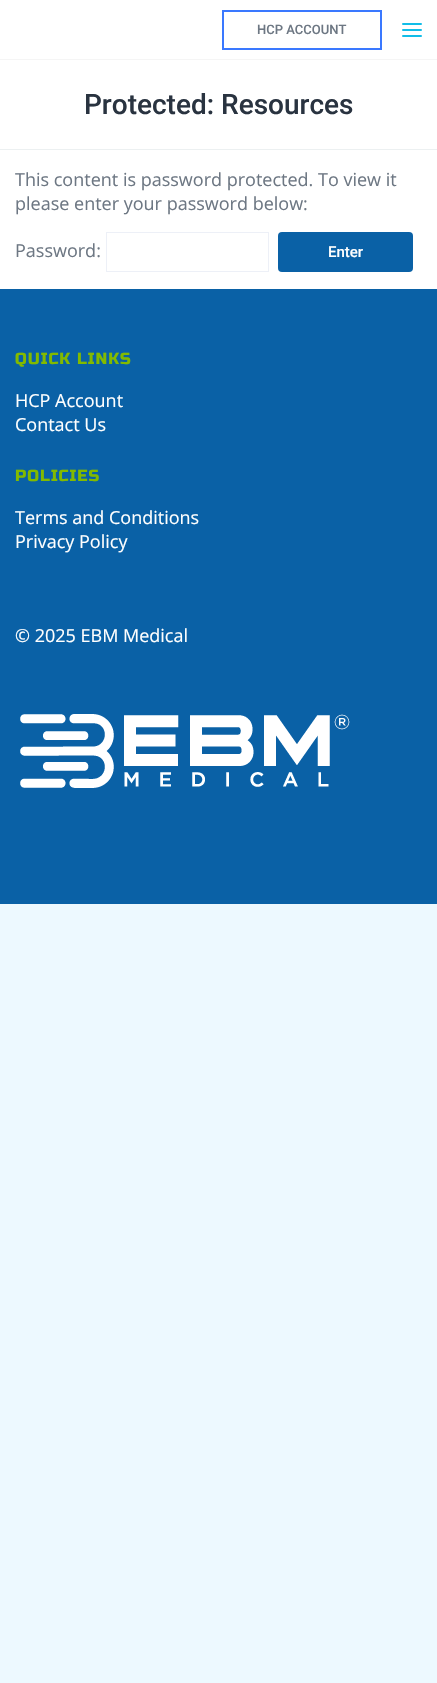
void draw(SkCanvas* canvas) {
  SkPaint paint;
  paint.setAntiAlias(true);
  auto face = [&](const char* family, int weight, float size, bool italic = false) {
    SkFontStyle style(weight, SkFontStyle::kNormal_Width,
      italic ? SkFontStyle::kItalic_Slant : SkFontStyle::kUpright_Slant);
    SkFont result(fontMgr->matchFamilyStyle(family, style), size);
    result.setSubpixel(true);
    return result;
  };
  auto writeSpaced = [&](const char* s, float x, float y, const SkFont& font, const SkPaint& ink, float letter, float word) {
    std::vector<SkGlyphID> glyphs(font.countText(s, strlen(s), SkTextEncoding::kUTF8));
    std::vector<float> xs(glyphs.size());
    font.textToGlyphs(s, strlen(s), SkTextEncoding::kUTF8, glyphs);
    font.getXPos(glyphs, xs, x);
    float extra = 0;
    for (size_t i = 0; i < glyphs.size(); i++) {
      xs[i] += extra;
      extra += letter + word * (glyphs[i] == font.unicharToGlyph(' '));
    }
    canvas->drawTextBlob(SkTextBlob::MakeFromPosHGlyphs(glyphs, xs, y, font), 0, 0, ink);
  };
  auto paste = [&](const char* path, float x, float y, float w, float h) {
    auto image = SkImages::DeferredFromEncodedData(SkData::MakeFromFileName(path));
    canvas->drawImageRect(image, SkRect::MakeXYWH(x, y, w, h), SkSamplingOptions());
  };
  canvas->clear(0xffedf9ff);
  paint.setColor(0xffffffff);
  canvas->drawRect(SkRect::MakeXYWH(0, 0, 437, 59), paint);
  paint.setColor(0xfff5f5f5);
  canvas->drawRect(SkRect::MakeXYWH(0, 59, 437, 1), paint);
  paint.setStroke(true);
  paint.setStrokeWidth(2);
  paint.setColor(0xff3a78ff);
  canvas->drawRect(SkRect::MakeXYWH(223, 11, 158, 38), paint);
  paint.setStroke(false);
  paint.setColor(0xff12bde8);
  canvas->drawRoundRect(SkRect::MakeXYWH(402, 29, 20, 2), 1, 1, paint);
  canvas->drawRoundRect(SkRect::MakeXYWH(402, 23, 20, 2), 1, 1, paint);
  canvas->drawRoundRect(SkRect::MakeXYWH(402, 35, 20, 2), 1, 1, paint);
  paint.setColor(0xffffffff);
  canvas->drawRect(SkRect::MakeXYWH(0, 60, 437, 229), paint);
  paint.setColor(0xffecf0f1);
  canvas->drawRect(SkRect::MakeXYWH(0, 149, 437, 1), paint);
  paint.setStroke(true);
  paint.setStrokeWidth(1);
  paint.setColor(0xffedf0f7);
  canvas->drawRect(SkRect::MakeXYWH(106.5f, 232.5f, 162, 39), paint);
  paint.setStroke(false);
  paint.setColor(0xff0a61a6);
  canvas->drawRoundRect(SkRect::MakeXYWH(278, 232, 135, 40), 4, 4, paint);
  canvas->drawRect(SkRect::MakeXYWH(0, 289, 437, 615), paint);
  paste("img/1.png", 20, 714, 330, 74);
  auto f0 = face("Roboto", 500, 13);
  paint.setColor(0xff6d7783);
  canvas->drawString("HCP ACCOUNT", 257, 34, f0, paint);
  auto f1 = face("Roboto", 500, 28);
  paint.setColor(0xff293340);
  canvas->drawString("Protected: Resources", 84, 114, f1, paint);
  auto f2 = face("Open Sans", 400, 18);
  paint.setColor(0xff6d7783);
  {
    const struct { const char* s; float x, y; } items[] = {
      {"This content is password protected. To view it", 15, 186},
      {"please enter your password below:", 15, 210},
      {"Password:", 15, 257},
    };
    for (auto [s, x, y] : items) {
      canvas->drawString(s, x, y, f2, paint);
    }
  }
  auto f3 = face("Roboto", 500, 15);
  paint.setColor(0xffffffff);
  canvas->drawString("Enter", 328, 257, f3, paint);
  auto f4 = face("Russo One", 400, 16);
  paint.setColor(0xff82ba00);
  writeSpaced("QUICK LINKS", 15, 364, f4, paint, 1, 0);
  paint.setColor(0xffffffff);
  canvas->drawString("HCP Account", 15, 407, f2, paint);
  canvas->drawString("Contact Us", 15, 431, f2, paint);
  paint.setColor(0xff82ba00);
  writeSpaced("POLICIES", 15, 481, f4, paint, 1, 0);
  paint.setColor(0xffffffff);
  {
    const struct { const char* s; float x, y; } items[] = {
      {"Terms and Conditions", 15, 524},
      {"Privacy Policy", 15, 548},
      {"© 2025 EBM Medical", 15, 642},
    };
    for (auto [s, x, y] : items) {
      canvas->drawString(s, x, y, f2, paint);
    }
  }
}
